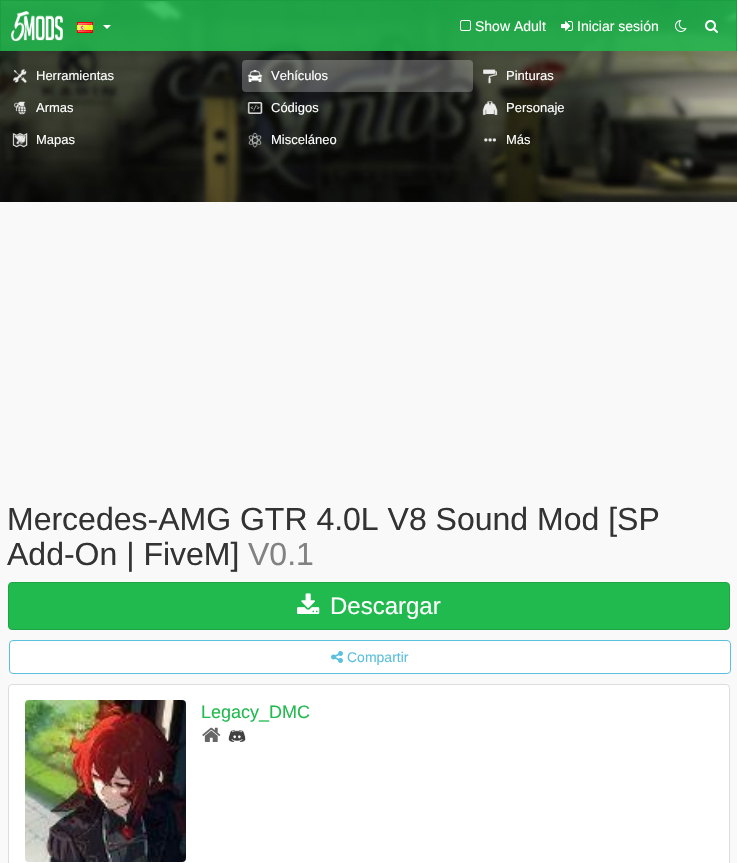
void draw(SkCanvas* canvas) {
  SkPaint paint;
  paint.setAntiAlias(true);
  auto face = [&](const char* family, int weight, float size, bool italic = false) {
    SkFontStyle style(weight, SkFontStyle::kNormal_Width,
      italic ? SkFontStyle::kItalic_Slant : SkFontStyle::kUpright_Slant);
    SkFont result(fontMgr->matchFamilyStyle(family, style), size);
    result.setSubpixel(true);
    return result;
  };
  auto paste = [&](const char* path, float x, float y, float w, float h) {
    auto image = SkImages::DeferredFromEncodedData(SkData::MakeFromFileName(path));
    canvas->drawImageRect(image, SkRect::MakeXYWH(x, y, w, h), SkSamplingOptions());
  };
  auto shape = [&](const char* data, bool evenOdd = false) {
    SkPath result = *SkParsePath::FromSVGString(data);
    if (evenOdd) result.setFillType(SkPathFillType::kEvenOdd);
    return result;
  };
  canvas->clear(0xfff9f9f9);
  paste("img/7.png", 0, 1, 737, 201);
  {
    const struct { float x, y, w, h; SkColor color; } items[] = {
      {1, 1, 735, 50, 0xd920ba4e},
      {0, 0, 737, 1, 0xff1b9e42},
      {736, 0, 1, 51, 0xff1b9e42},
      {0, 0, 1, 51, 0xff1b9e42},
    };
    for (auto [x, y, w, h, color] : items) {
      paint.setColor(color);
      canvas->drawRect(SkRect::MakeXYWH(x, y, w, h), paint);
    }
  }
  paste("img/1.png", 11, 11, 52, 30);
  paste("img/2.png", 77, 22, 16, 11);
  paint.setColor(0xffffffff);
  canvas->drawPath(shape("M103 25H111L107 29Z"), paint);
  paste("img/3.png", 460, 20, 11, 11);
  paste("img/4.png", 561, 21, 12, 10);
  paste("img/5.png", 675, 20, 12, 12);
  paste("img/6.png", 705, 20, 13, 13);
  paste("img/8.png", 13, 69, 14, 14);
  paint.setColor(0x40ffffff);
  canvas->drawRoundRect(SkRect::MakeXYWH(242, 60, 231, 32), 4, 4, paint);
  paste("img/9.png", 247, 70, 16, 12);
  paste("img/10.png", 483, 69, 14, 15);
  paste("img/11.png", 14, 101, 12, 14);
  paste("img/12.png", 247, 102, 16, 12);
  paste("img/13.png", 482, 101, 16, 14);
  paste("img/14.png", 12, 132, 16, 16);
  paste("img/15.png", 248, 132, 14, 16);
  paste("img/16.png", 484, 138, 12, 4);
  paint.setColor(0xff20ba4e);
  canvas->drawRoundRect(SkRect::MakeXYWH(8.5f, 582.5f, 721, 47), 3.5f, 3.5f, paint);
  paint.setStroke(true);
  paint.setStrokeWidth(1);
  paint.setColor(0xff1ca445);
  canvas->drawRoundRect(SkRect::MakeXYWH(8.5f, 582.5f, 721, 47), 3.5f, 3.5f, paint);
  paste("img/17.png", 297, 593, 23, 21);
  paint.setStroke(false);
  paint.setColor(0xffffffff);
  canvas->drawRoundRect(SkRect::MakeXYWH(9.5f, 640.5f, 721, 33), 3.5f, 3.5f, paint);
  paint.setStroke(true);
  paint.setColor(0xff5bc0de);
  canvas->drawRoundRect(SkRect::MakeXYWH(9.5f, 640.5f, 721, 33), 3.5f, 3.5f, paint);
  paste("img/18.png", 331, 651, 12, 12);
  paint.setStroke(false);
  paint.setColor(0xffffffff);
  canvas->drawRoundRect(SkRect::MakeXYWH(8.5f, 684.5f, 721, 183), 3.5f, 3.5f, paint);
  paint.setStroke(true);
  paint.setColor(0xffdddddd);
  canvas->drawRoundRect(SkRect::MakeXYWH(8.5f, 684.5f, 721, 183), 3.5f, 3.5f, paint);
  paste("img/19.png", 25, 700, 161, 162);
  paste("img/20.png", 202, 727, 19, 15);
  paste("img/21.png", 228, 730, 18, 12);
  auto f0 = face("Liberation Sans", 400, 14);
  paint.setStroke(false);
  paint.setColor(0xffffffff);
  canvas->drawString("Show Adult", 475, 31, f0, paint);
  canvas->drawString("Iniciar sesión", 577, 31, f0, paint);
  auto f1 = face("Liberation Sans", 400, 13);
  {
    const struct { const char* s; float x, y; } items[] = {
      {"Herramientas", 36, 80},
      {"Vehículos", 271, 80},
      {"Pinturas", 506, 80},
      {"Armas", 36, 112},
      {"Códigos", 271, 112},
      {"Personaje", 506, 112},
      {"Mapas", 36, 144},
      {"Misceláneo", 271, 144},
      {"Más", 506, 144},
    };
    for (auto [s, x, y] : items) {
      canvas->drawString(s, x, y, f1, paint);
    }
  }
  auto f2 = face("Liberation Sans", 400, 32);
  paint.setColor(0xff333333);
  canvas->drawString("Mercedes-AMG GTR 4.0L V8 Sound Mod [SP", 7, 530, f2, paint);
  canvas->drawString("Add-On | FiveM]", 7, 565, f2, paint);
  paint.setColor(0xff828282);
  canvas->drawString("V0.1", 248, 565, f2, paint);
  auto f3 = face("Liberation Sans", 400, 24);
  paint.setColor(0xffffffff);
  canvas->drawString("Descargar", 330, 614, f3, paint);
  paint.setColor(0xff5bc0de);
  canvas->drawString("Compartir", 347, 662, f0, paint);
  auto f4 = face("Liberation Sans", 400, 18);
  paint.setColor(0xff20ba4e);
  canvas->drawString("Legacy_DMC", 201, 718, f4, paint);
}
